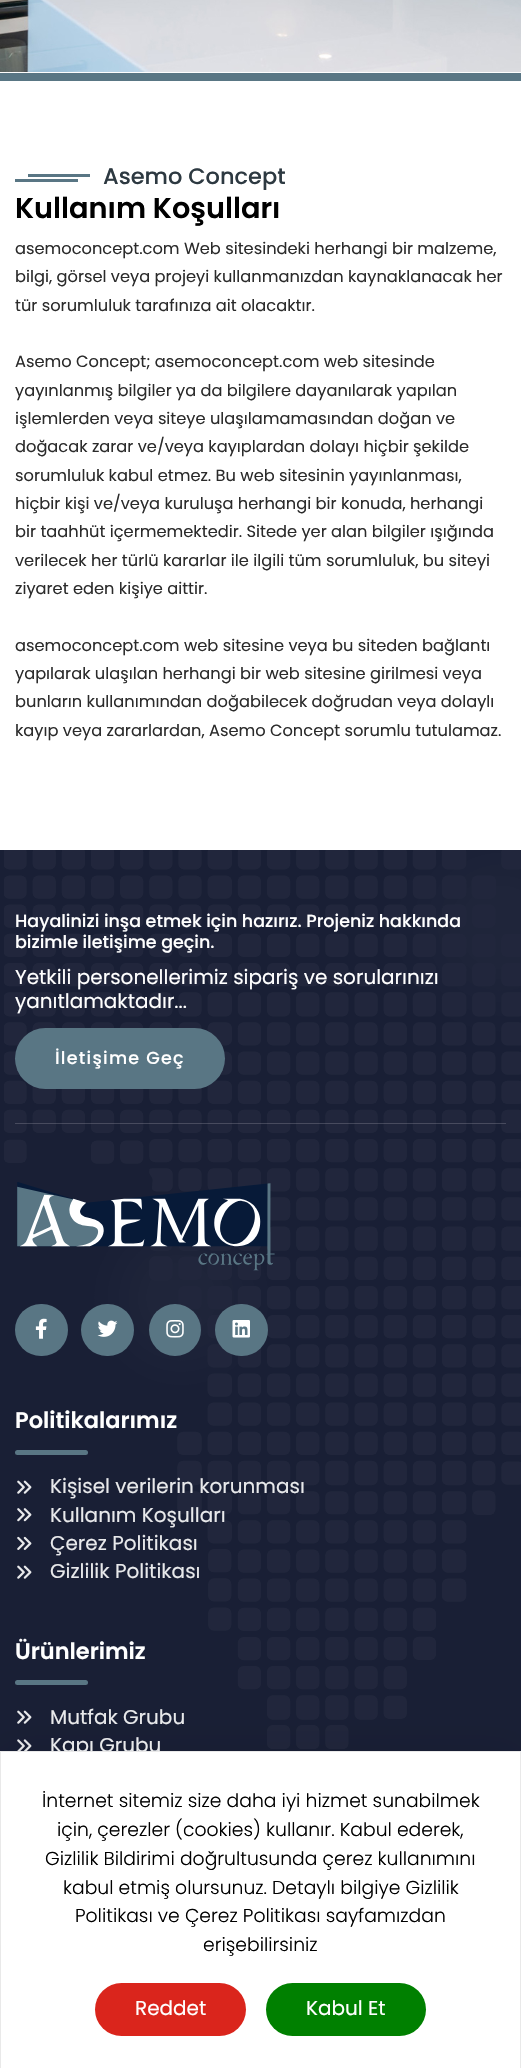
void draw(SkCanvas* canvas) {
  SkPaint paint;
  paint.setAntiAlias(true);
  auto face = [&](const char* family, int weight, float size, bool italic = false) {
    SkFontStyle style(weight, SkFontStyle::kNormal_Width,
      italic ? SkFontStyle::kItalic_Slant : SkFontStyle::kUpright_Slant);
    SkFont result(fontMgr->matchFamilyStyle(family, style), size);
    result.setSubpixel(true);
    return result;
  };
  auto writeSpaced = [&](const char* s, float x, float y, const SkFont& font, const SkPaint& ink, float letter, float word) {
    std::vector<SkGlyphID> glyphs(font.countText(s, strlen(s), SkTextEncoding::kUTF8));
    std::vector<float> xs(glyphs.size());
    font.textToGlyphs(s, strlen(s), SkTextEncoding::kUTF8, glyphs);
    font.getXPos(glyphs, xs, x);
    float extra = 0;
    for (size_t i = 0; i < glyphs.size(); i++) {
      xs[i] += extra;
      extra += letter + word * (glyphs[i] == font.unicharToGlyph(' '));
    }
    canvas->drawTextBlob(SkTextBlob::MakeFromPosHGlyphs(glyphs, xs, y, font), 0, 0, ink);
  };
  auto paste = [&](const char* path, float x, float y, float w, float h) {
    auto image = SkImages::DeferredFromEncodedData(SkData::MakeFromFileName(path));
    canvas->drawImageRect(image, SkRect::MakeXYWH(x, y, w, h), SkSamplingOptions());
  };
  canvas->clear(0xffffffff);
  paste("img/1.png", 0, 0, 521, 73);
  {
    const struct { float x, y, w, h; SkColor color; } items[] = {
      {0, 73, 521, 8, 0xff597684},
      {28, 174, 62, 3, 0xff597684},
      {15, 179, 63, 3, 0xff597684},
      {0, 850, 521, 901, 0xff191f35},
    };
    for (auto [x, y, w, h, color] : items) {
      paint.setColor(color);
      canvas->drawRect(SkRect::MakeXYWH(x, y, w, h), paint);
    }
  }
  paste("img/2.png", 4, 850, 517, 899);
  paint.setColor(0xff597684);
  canvas->drawRoundRect(SkRect::MakeXYWH(15, 1028, 210, 61), 30.5f, 30.5f, paint);
  paint.setColor(0x40bbb7c2);
  canvas->drawRect(SkRect::MakeXYWH(15, 1123, 491, 1), paint);
  paste("img/3.png", 17, 1182, 258, 89);
  paint.setColor(0xff597684);
  canvas->drawRoundRect(SkRect::MakeXYWH(15, 1304, 53, 52), 26, 26, paint);
  paste("img/4.png", 35, 1318, 12, 21);
  canvas->drawRoundRect(SkRect::MakeXYWH(81, 1304, 53, 52), 26, 26, paint);
  paste("img/5.png", 97, 1320, 21, 17);
  canvas->drawCircle(175, 1330, 26, paint);
  paste("img/6.png", 166, 1320, 18, 18);
  canvas->drawRoundRect(SkRect::MakeXYWH(215, 1304, 53, 52), 26, 26, paint);
  paste("img/7.png", 232, 1320, 18, 18);
  canvas->drawRoundRect(SkRect::MakeXYWH(15, 1450, 73, 5), 2.5f, 2.5f, paint);
  paste("img/8.png", 17, 1480, 15, 14);
  paste("img/9.png", 17, 1508, 15, 14);
  paste("img/10.png", 17, 1536, 15, 14);
  paste("img/8.png", 17, 1565, 15, 14);
  canvas->drawRoundRect(SkRect::MakeXYWH(15, 1680, 73, 5), 2.5f, 2.5f, paint);
  paste("img/8.png", 17, 1710, 15, 14);
  paste("img/11.png", 17, 1739, 15, 12);
  paint.setColor(0x12000000);
  paint.setMaskFilter(SkMaskFilter::MakeBlur(kNormal_SkBlurStyle, 20));
  canvas->drawRect(SkRect::MakeXYWH(0, 1751, 521, 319), paint);
  paint.setMaskFilter(nullptr);
  auto f0 = face("Poppins", 500, 22.5f);
  paint.setColor(0xff2d3941);
  canvas->drawString("Asemo Concept", 103, 184, f0, paint);
  auto f1 = face("Poppins", 600, 28.75f);
  paint.setColor(0xff000000);
  canvas->drawString("Kullanım Koşulları", 15, 218, f1, paint);
  auto f2 = face("Poppins", 400, 16.25f);
  paint.setColor(0xff2b2b2b);
  {
    const struct { const char* s; float x, y; } items[] = {
      {"asemoconcept.com Web sitesindeki herhangi bir malzeme,", 15, 254},
      {"bilgi, görsel veya projeyi kullanmanızdan kaynaklanacak her", 15, 282},
      {"tür sorumluluk tarafınıza ait olacaktır.", 15, 311},
      {"Asemo Concept; asemoconcept.com web sitesinde", 15, 367},
      {"yayınlanmış bilgiler ya da bilgilere dayanılarak yapılan", 15, 396},
      {"işlemlerden veya siteye ulaşılamamasından doğan ve", 15, 424},
      {"doğacak zarar ve/veya kayıplardan dolayı hiçbir şekilde", 15, 452},
      {"sorumluluk kabul etmez. Bu web sitesinin yayınlanması,", 15, 481},
      {"hiçbir kişi ve/veya kuruluşa herhangi bir konuda, herhangi", 15, 509},
      {"bir taahhüt içermemektedir. Sitede yer alan bilgiler ışığında", 15, 537},
      {"verilecek her türlü kararlar ile ilgili tüm sorumluluk, bu siteyi", 15, 566},
      {"ziyaret eden kişiye aittir.", 15, 594},
      {"asemoconcept.com web sitesine veya bu siteden bağlantı", 15, 651},
      {"yapılarak ulaşılan herhangi bir web sitesine girilmesi veya", 15, 679},
      {"bunların kullanımından doğabilecek doğrudan veya dolaylı", 15, 707},
      {"kayıp veya zararlardan, Asemo Concept sorumlu tutulamaz.", 15, 736},
    };
    for (auto [s, x, y] : items) {
      canvas->drawString(s, x, y, f2, paint);
    }
  }
  auto f3 = face("Poppins", 500, 17.5f);
  paint.setColor(0xffffffff);
  canvas->drawString("Hayalinizi inşa etmek için hazırız. Projeniz hakkında", 15, 927, f3, paint);
  canvas->drawString("bizimle iletişime geçin.", 15, 948, f3, paint);
  auto f4 = face("Poppins", 400, 20);
  canvas->drawString("Yetkili personellerimiz sipariş ve sorularınızı", 15, 984, f4, paint);
  canvas->drawString("yanıtlamaktadır...", 15, 1008, f4, paint);
  writeSpaced("İletişime Geç", 55, 1064, f3, paint, 1.25f, 0);
  auto f5 = face("Poppins", 600, 22.5f);
  canvas->drawString("Politikalarımız", 15, 1428, f5, paint);
  paint.setColor(0xffe8e9eb);
  {
    const struct { const char* s; float x, y; } items[] = {
      {"Kişisel verilerin korunması", 50, 1493},
      {"Kullanım Koşulları", 50, 1522},
      {"Çerez Politikası", 50, 1550},
      {"Gizlilik Politikası", 50, 1578},
    };
    for (auto [s, x, y] : items) {
      canvas->drawString(s, x, y, f4, paint);
    }
  }
  paint.setColor(0xffffffff);
  canvas->drawString("Ürünlerimiz", 15, 1659, f5, paint);
  paint.setColor(0xffe8e9eb);
  canvas->drawString("Mutfak Grubu", 50, 1724, f4, paint);
  canvas->drawString("Kapı Grubu", 50, 1752, f4, paint);
  paint.setColor(0xffffffff);
  canvas->drawRect(SkRect::MakeXYWH(0.5f, 1751.5f, 520, 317), paint);
  paint.setStroke(true);
  paint.setStrokeWidth(1);
  paint.setColor(0xffe9e9e9);
  canvas->drawRect(SkRect::MakeXYWH(0.5f, 1751.5f, 520, 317), paint);
  auto f6 = face("Poppins", 300, 18.75f);
  paint.setStroke(false);
  paint.setColor(0xff000000);
  {
    const struct { const char* s; float x, y; } items[] = {
      {"İnternet sitemiz size daha iyi hizmet sunabilmek", 42, 1807},
      {"için, çerezler (cookies) kullanır. Kabul ederek,", 57, 1836},
      {"Gizlilik Bildirimi doğrultusunda çerez kullanımını", 45, 1865},
      {"kabul etmiş olursunuz. Detaylı bilgiye Gizlilik", 63, 1894},
      {"Politikası ve Çerez Politikası sayfamızdan", 75, 1922},
      {"erişebilirsiniz", 203, 1951},
    };
    for (auto [s, x, y] : items) {
      canvas->drawString(s, x, y, f6, paint);
    }
  }
  paint.setColor(0xffda251c);
  canvas->drawRoundRect(SkRect::MakeXYWH(95, 1983, 151, 53), 26.5f, 26.5f, paint);
  paint.setColor(0xffffffff);
  canvas->drawString("Reddet", 135, 2015, f4, paint);
  paint.setColor(0xff008000);
  canvas->drawRoundRect(SkRect::MakeXYWH(266, 1983, 160, 53), 26.5f, 26.5f, paint);
  paint.setColor(0xffffffff);
  canvas->drawString("Kabul Et", 306, 2015, f4, paint);
}
